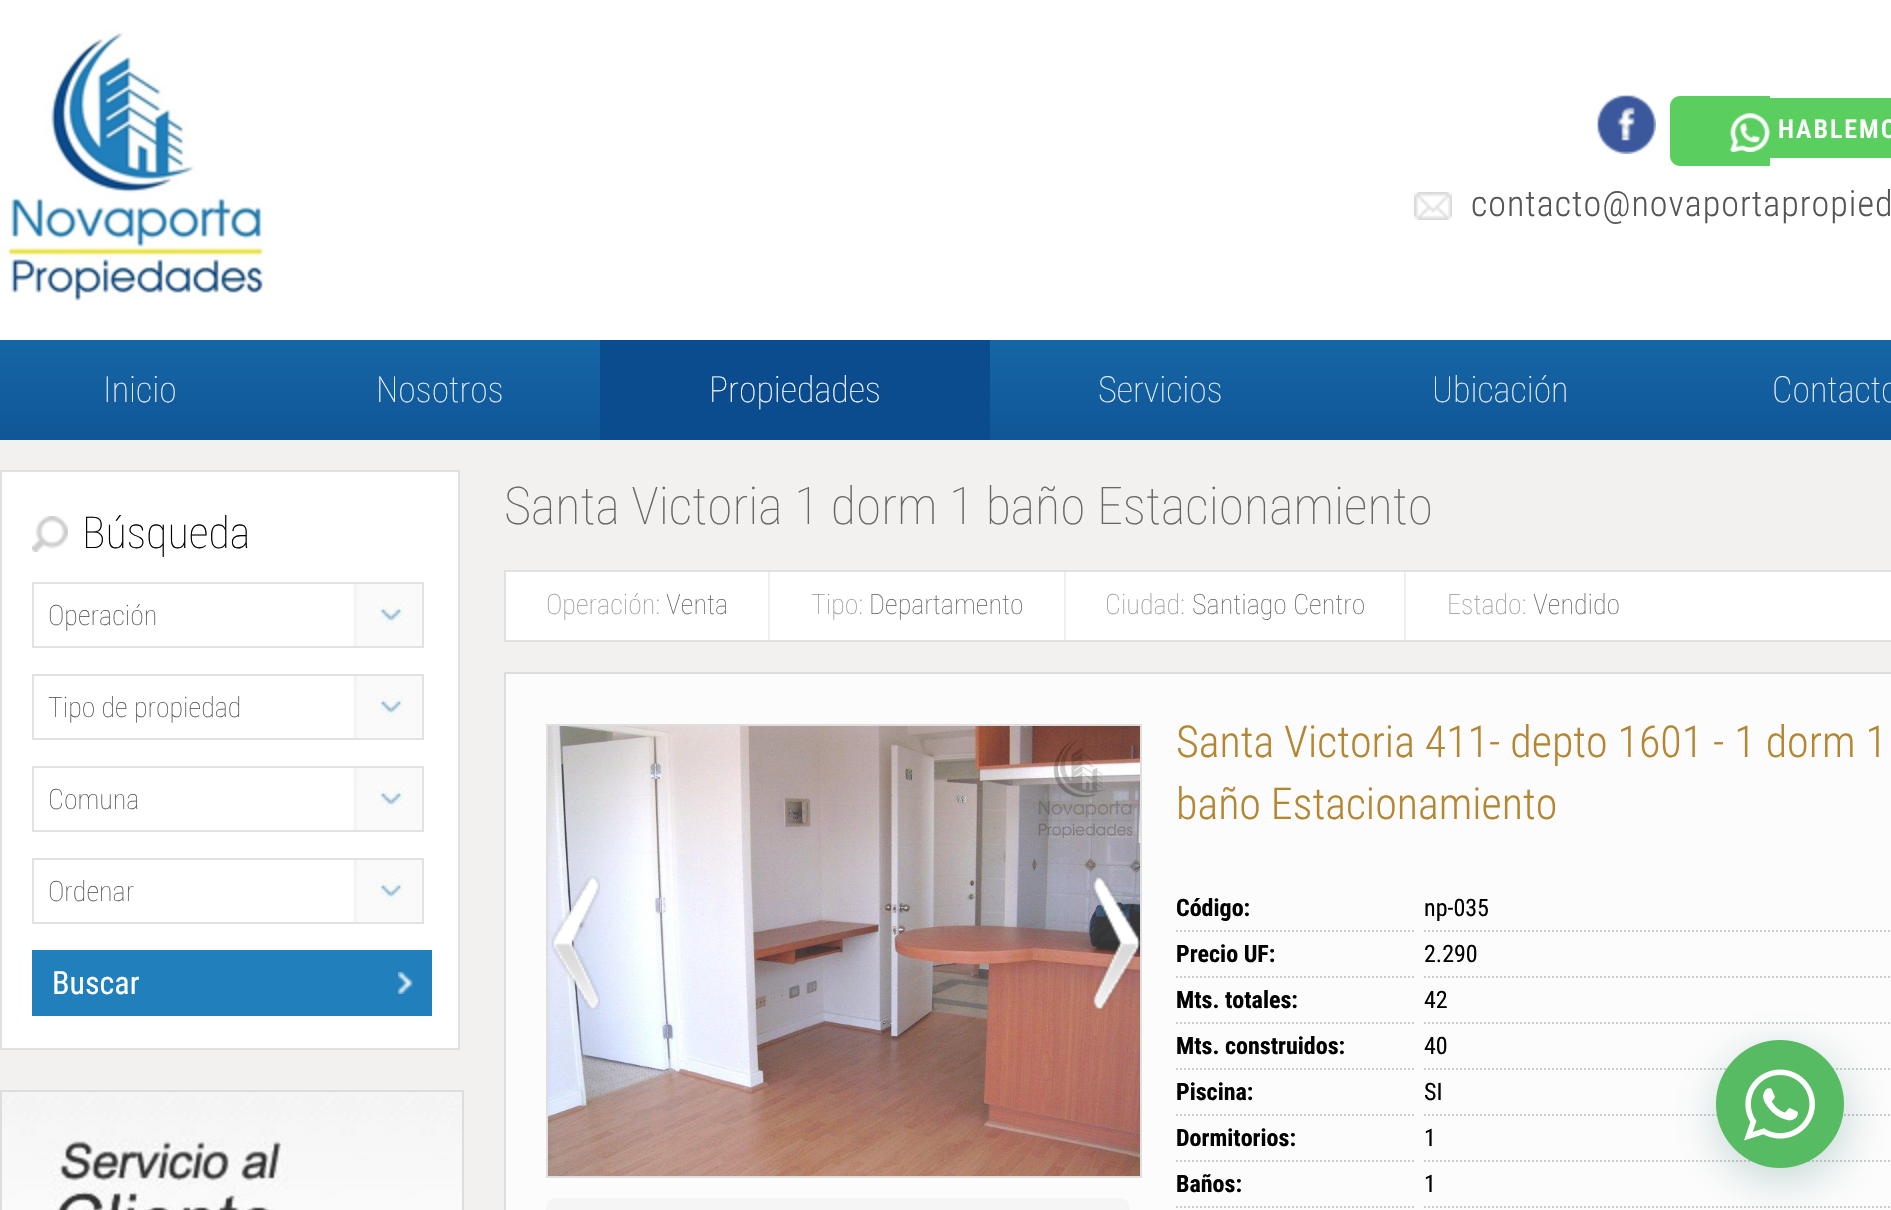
void draw(SkCanvas* canvas) {
  SkPaint paint;
  paint.setAntiAlias(true);
  auto face = [&](const char* family, int weight, float size, bool italic = false) {
    SkFontStyle style(weight, SkFontStyle::kNormal_Width,
      italic ? SkFontStyle::kItalic_Slant : SkFontStyle::kUpright_Slant);
    SkFont result(fontMgr->matchFamilyStyle(family, style), size);
    result.setSubpixel(true);
    return result;
  };
  auto writeSpaced = [&](const char* s, float x, float y, const SkFont& font, const SkPaint& ink, float letter, float word) {
    std::vector<SkGlyphID> glyphs(font.countText(s, strlen(s), SkTextEncoding::kUTF8));
    std::vector<float> xs(glyphs.size());
    font.textToGlyphs(s, strlen(s), SkTextEncoding::kUTF8, glyphs);
    font.getXPos(glyphs, xs, x);
    float extra = 0;
    for (size_t i = 0; i < glyphs.size(); i++) {
      xs[i] += extra;
      extra += letter + word * (glyphs[i] == font.unicharToGlyph(' '));
    }
    canvas->drawTextBlob(SkTextBlob::MakeFromPosHGlyphs(glyphs, xs, y, font), 0, 0, ink);
  };
  auto paste = [&](const char* path, float x, float y, float w, float h) {
    auto image = SkImages::DeferredFromEncodedData(SkData::MakeFromFileName(path));
    canvas->drawImageRect(image, SkRect::MakeXYWH(x, y, w, h), SkSamplingOptions());
  };
  auto shape = [&](const char* data, bool evenOdd = false) {
    SkPath result = *SkParsePath::FromSVGString(data);
    if (evenOdd) result.setFillType(SkPathFillType::kEvenOdd);
    return result;
  };
  canvas->clear(0xfff2f1f0);
  paint.setColor(0xffffffff);
  canvas->drawRect(SkRect::MakeXYWH(0, 0, 1891, 340), paint);
  paste("img/1.png", 0, 30, 264, 275);
  paste("img/2.png", 1596, 94, 60, 60);
  paint.setColor(0xff5acf5f);
  canvas->drawPath(shape("M1680 96H1770V166H1680C1674.5 166 1670 161.5 1670 156V106C1670 100.5 1674.5 96 1680 96Z"), paint);
  paste("img/3.png", 1730, 113, 40, 39);
  canvas->drawRect(SkRect::MakeXYWH(1770, 98, 121, 60), paint);
  paste("img/4.png", 1414, 192, 38, 28);
  paste("img/5.png", 0, 340, 1891, 100);
  paint.setColor(0xff0b4c8f);
  canvas->drawRect(SkRect::MakeXYWH(600, 340, 390, 100), paint);
  paint.setColor(0xffffffff);
  canvas->drawRect(SkRect::MakeXYWH(1, 471, 458, 578), paint);
  paint.setStroke(true);
  paint.setStrokeWidth(2);
  paint.setColor(0xffe0e0e0);
  canvas->drawRect(SkRect::MakeXYWH(1, 471, 458, 578), paint);
  paste("img/6.png", 32, 516, 36, 36);
  paste("img/7.png", 353, 584, 69, 62);
  paint.setColor(0xffe2e2e2);
  canvas->drawRect(SkRect::MakeXYWH(33, 583, 390, 64), paint);
  paste("img/7.png", 353, 676, 69, 62);
  canvas->drawRect(SkRect::MakeXYWH(33, 675, 390, 64), paint);
  paste("img/7.png", 353, 768, 69, 62);
  canvas->drawRect(SkRect::MakeXYWH(33, 767, 390, 64), paint);
  paste("img/7.png", 353, 860, 69, 62);
  canvas->drawRect(SkRect::MakeXYWH(33, 859, 390, 64), paint);
  paint.setStroke(false);
  paint.setColor(0xff217fbc);
  canvas->drawRect(SkRect::MakeXYWH(32, 950, 400, 66), paint);
  paste("img/8.png", 398, 972, 15, 22);
  paint.setStroke(true);
  paint.setColor(0xffdddddd);
  canvas->drawRect(SkRect::MakeXYWH(1, 1091, 462, 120), paint);
  paste("img/9.png", 2, 1092, 460, 118);
  paint.setStroke(false);
  paint.setColor(0xffffffff);
  canvas->drawRect(SkRect::MakeXYWH(505, 571, 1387, 70), paint);
  paint.setStroke(true);
  paint.setColor(0xffe0e0e0);
  canvas->drawRect(SkRect::MakeXYWH(505, 571, 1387, 70), paint);
  paint.setStroke(false);
  {
    const struct { float x, y, w, h; SkColor color; } items[] = {
      {768, 572, 2, 68, 0xffeeeeee},
      {1064, 572, 2, 68, 0xffeeeeee},
      {1404, 572, 2, 68, 0xffeeeeee},
    };
    for (auto [x, y, w, h, color] : items) {
      paint.setColor(color);
      canvas->drawRect(SkRect::MakeXYWH(x, y, w, h), paint);
    }
  }
  paint.setColor(0xfffcfcfc);
  canvas->drawRect(SkRect::MakeXYWH(505, 673, 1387, 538), paint);
  paint.setStroke(true);
  paint.setColor(0xffdddddd);
  canvas->drawRect(SkRect::MakeXYWH(505, 673, 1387, 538), paint);
  paint.setColor(0xffdfdfdf);
  canvas->drawRect(SkRect::MakeXYWH(547, 725, 594, 452), paint);
  paste("img/10.png", 548, 726, 592, 450);
  paste("img/11.png", 551, 876, 49, 135);
  paste("img/12.png", 1092, 876, 49, 134);
  paint.setStroke(false);
  paint.setColor(0xfff5f5f5);
  canvas->drawRoundRect(SkRect::MakeXYWH(546, 1198, 584, 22), 10, 10, paint);
  paint.setStroke(true);
  paint.setColor(0xffcccccc);
  paint.setPathEffect(SkDashPathEffect::Make({{2, 2}}, 0));
  canvas->drawPath(shape("M1176 931H1416"), paint);
  paint.setPathEffect(nullptr);
  paint.setPathEffect(SkDashPathEffect::Make({{2, 2}}, 0));
  canvas->drawPath(shape("M1424 931H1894"), paint);
  paint.setPathEffect(nullptr);
  paint.setPathEffect(SkDashPathEffect::Make({{2, 2}}, 0));
  canvas->drawPath(shape("M1176 977H1416"), paint);
  paint.setPathEffect(nullptr);
  paint.setPathEffect(SkDashPathEffect::Make({{2, 2}}, 0));
  canvas->drawPath(shape("M1424 977H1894"), paint);
  paint.setPathEffect(nullptr);
  paint.setPathEffect(SkDashPathEffect::Make({{2, 2}}, 0));
  canvas->drawPath(shape("M1176 1023H1416"), paint);
  paint.setPathEffect(nullptr);
  paint.setPathEffect(SkDashPathEffect::Make({{2, 2}}, 0));
  canvas->drawPath(shape("M1424 1023H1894"), paint);
  paint.setPathEffect(nullptr);
  paint.setPathEffect(SkDashPathEffect::Make({{2, 2}}, 0));
  canvas->drawPath(shape("M1176 1069H1416"), paint);
  paint.setPathEffect(nullptr);
  paint.setPathEffect(SkDashPathEffect::Make({{2, 2}}, 0));
  canvas->drawPath(shape("M1424 1069H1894"), paint);
  paint.setPathEffect(nullptr);
  paint.setPathEffect(SkDashPathEffect::Make({{2, 2}}, 0));
  canvas->drawPath(shape("M1176 1115H1416"), paint);
  paint.setPathEffect(nullptr);
  paint.setPathEffect(SkDashPathEffect::Make({{2, 2}}, 0));
  canvas->drawPath(shape("M1424 1115H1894"), paint);
  paint.setPathEffect(nullptr);
  paint.setPathEffect(SkDashPathEffect::Make({{2, 2}}, 0));
  canvas->drawPath(shape("M1176 1161H1416"), paint);
  paint.setPathEffect(nullptr);
  paint.setPathEffect(SkDashPathEffect::Make({{2, 2}}, 0));
  canvas->drawPath(shape("M1424 1161H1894"), paint);
  paint.setPathEffect(nullptr);
  paint.setPathEffect(SkDashPathEffect::Make({{2, 2}}, 0));
  canvas->drawPath(shape("M1176 1207H1416"), paint);
  paint.setPathEffect(nullptr);
  paint.setPathEffect(SkDashPathEffect::Make({{2, 2}}, 0));
  canvas->drawPath(shape("M1424 1207H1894"), paint);
  paint.setPathEffect(nullptr);
  paint.setStroke(false);
  paint.setColor(0x3d075e54);
  paint.setMaskFilter(SkMaskFilter::MakeBlur(kNormal_SkBlurStyle, 24));
  canvas->drawRoundRect(SkRect::MakeXYWH(1718, 1052, 128, 128), 64, 64, paint);
  paint.setMaskFilter(nullptr);
  paste("img/13.png", 1716, 1040, 128, 128);
  auto f0 = face("Roboto Condensed", 600, 26);
  paint.setColor(0xffffffff);
  writeSpaced("HABLEMO", 1778, 138, f0, paint, 2, 0);
  auto f1 = face("Roboto Condensed", 300, 36);
  paint.setColor(0xff545454);
  writeSpaced("contacto@novaportapropied", 1471, 216, f1, paint, 1, 0);
  auto f2 = face("Roboto Condensed", 100, 36);
  paint.setColor(0xffeef2f9);
  canvas->drawString("Inicio", 103, 402, f2, paint);
  canvas->drawString("Nosotros", 376, 402, f2, paint);
  paint.setColor(0xffffffff);
  canvas->drawString("Propiedades", 709, 402, f2, paint);
  paint.setColor(0xffeef2f9);
  {
    const struct { const char* s; float x, y; } items[] = {
      {"Servicios", 1098, 402},
      {"Ubicación", 1432, 402},
      {"Contacto", 1772, 402},
    };
    for (auto [s, x, y] : items) {
      canvas->drawString(s, x, y, f2, paint);
    }
  }
  auto f3 = face("Roboto Condensed", 100, 44);
  paint.setColor(0xff000000);
  canvas->drawString("Búsqueda", 82, 548, f3, paint);
  auto f4 = face("Roboto Condensed", 100, 28);
  paint.setColor(0xff545454);
  {
    const struct { const char* s; float x, y; } items[] = {
      {"Operación", 48, 625},
      {"Tipo de propiedad", 48, 717},
      {"Comuna", 48, 809},
      {"Ordenar", 48, 901},
    };
    for (auto [s, x, y] : items) {
      canvas->drawString(s, x, y, f4, paint);
    }
  }
  auto f5 = face("Roboto Condensed", 400, 32);
  paint.setColor(0xffffffff);
  canvas->drawString("Buscar", 52, 994, f5, paint);
  auto f6 = face("Roboto Condensed", 100, 52);
  paint.setColor(0xff666666);
  canvas->drawString("Santa Victoria 1 dorm 1 baño Estacionamiento", 504, 524, f6, paint);
  paint.setColor(0xff999999);
  canvas->drawString("Operación:", 546, 614, f4, paint);
  paint.setColor(0xff666666);
  canvas->drawString("Venta", 666, 614, f4, paint);
  paint.setColor(0xff999999);
  canvas->drawString("Tipo:", 811, 614, f4, paint);
  paint.setColor(0xff666666);
  canvas->drawString("Departamento", 869, 614, f4, paint);
  paint.setColor(0xff999999);
  canvas->drawString("Ciudad:", 1105, 614, f4, paint);
  paint.setColor(0xff666666);
  canvas->drawString("Santiago Centro", 1192, 614, f4, paint);
  paint.setColor(0xff999999);
  canvas->drawString("Estado:", 1447, 614, f4, paint);
  paint.setColor(0xff666666);
  canvas->drawString("Vendido", 1533, 614, f4, paint);
  auto f7 = face("Roboto Condensed", 300, 44);
  paint.setColor(0xffb58632);
  canvas->drawString("Santa Victoria 411- depto 1601 - 1 dorm 1", 1176, 757, f7, paint);
  canvas->drawString("baño Estacionamiento", 1176, 819, f7, paint);
  auto f8 = face("Roboto Condensed", 700, 24);
  paint.setColor(0xff000000);
  canvas->drawString("Código:", 1176, 916, f8, paint);
  auto f9 = face("Roboto Condensed", 400, 24);
  canvas->drawString("np-035", 1424, 916, f9, paint);
  canvas->drawString("Precio UF:", 1176, 962, f8, paint);
  canvas->drawString("2.290", 1424, 962, f9, paint);
  canvas->drawString("Mts. totales:", 1176, 1008, f8, paint);
  canvas->drawString("42", 1424, 1008, f9, paint);
  canvas->drawString("Mts. construidos:", 1176, 1054, f8, paint);
  canvas->drawString("40", 1424, 1054, f9, paint);
  canvas->drawString("Piscina:", 1176, 1100, f8, paint);
  canvas->drawString("SI", 1424, 1100, f9, paint);
  canvas->drawString("Dormitorios:", 1176, 1146, f8, paint);
  canvas->drawString("1", 1424, 1146, f9, paint);
  canvas->drawString("Baños:", 1176, 1192, f8, paint);
  canvas->drawString("1", 1424, 1192, f9, paint);
}
